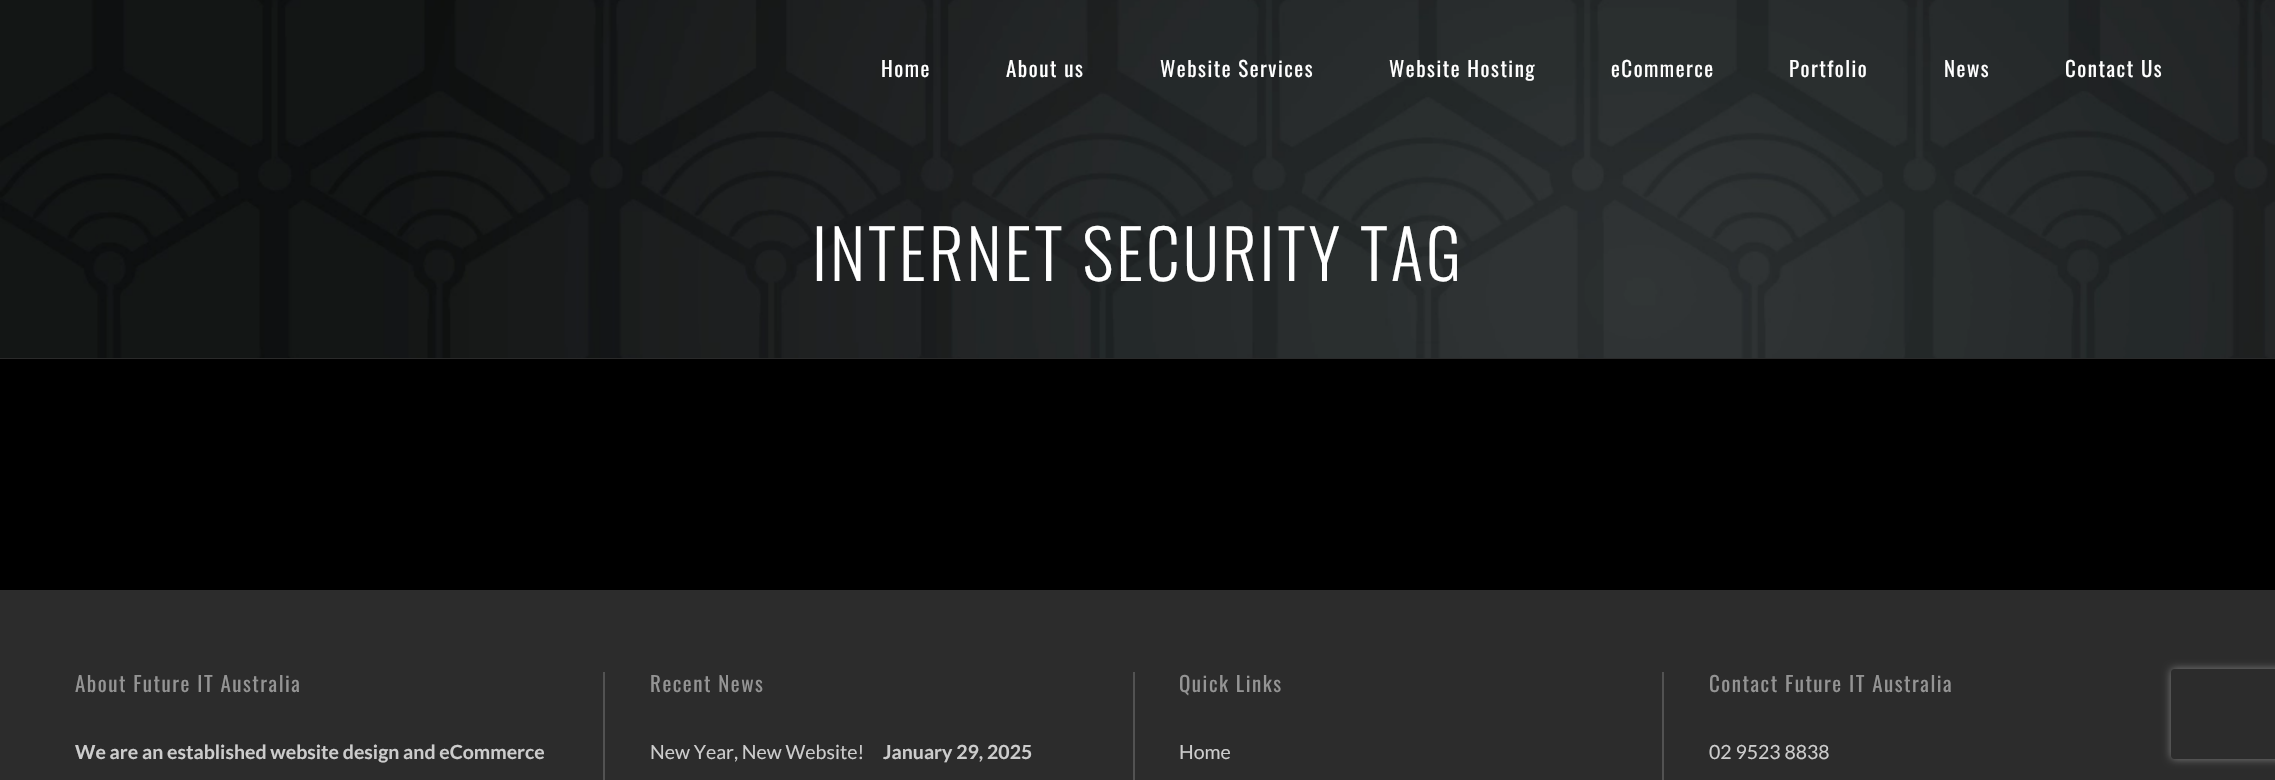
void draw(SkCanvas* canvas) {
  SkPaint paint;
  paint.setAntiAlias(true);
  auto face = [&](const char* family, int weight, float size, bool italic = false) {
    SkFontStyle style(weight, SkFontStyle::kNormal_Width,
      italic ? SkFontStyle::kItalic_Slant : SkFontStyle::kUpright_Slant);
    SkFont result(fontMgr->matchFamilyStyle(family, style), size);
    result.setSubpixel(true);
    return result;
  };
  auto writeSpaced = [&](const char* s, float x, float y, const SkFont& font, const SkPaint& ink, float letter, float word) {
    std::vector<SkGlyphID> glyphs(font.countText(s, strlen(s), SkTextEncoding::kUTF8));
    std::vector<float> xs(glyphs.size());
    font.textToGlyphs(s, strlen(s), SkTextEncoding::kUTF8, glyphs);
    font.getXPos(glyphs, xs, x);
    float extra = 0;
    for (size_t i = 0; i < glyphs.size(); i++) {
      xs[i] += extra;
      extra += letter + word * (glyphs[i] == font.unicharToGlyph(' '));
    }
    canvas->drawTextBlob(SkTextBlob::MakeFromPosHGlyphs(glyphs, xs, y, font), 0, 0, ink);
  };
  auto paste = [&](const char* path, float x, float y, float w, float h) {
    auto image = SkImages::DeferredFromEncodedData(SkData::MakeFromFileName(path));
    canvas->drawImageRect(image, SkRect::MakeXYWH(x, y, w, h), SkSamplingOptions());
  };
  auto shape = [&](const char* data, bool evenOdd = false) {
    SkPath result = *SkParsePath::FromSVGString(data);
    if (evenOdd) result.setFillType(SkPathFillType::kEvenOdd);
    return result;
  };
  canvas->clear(0xff000000);
  paint.setColor(0xff2a2a2a);
  canvas->drawRect(SkRect::MakeXYWH(0, 358, 2275, 1), paint);
  paste("img/1.png", 0, 0, 2275, 358);
  {
    const struct { float x, y, w, h; SkColor color; } items[] = {
      {0, 590, 2275, 190, 0xff2c2c2c},
      {603, 672, 2, 108, 0xff525252},
      {1133, 672, 2, 108, 0xff525252},
      {1662, 672, 2, 108, 0xff525252},
    };
    for (auto [x, y, w, h, color] : items) {
      paint.setColor(color);
      canvas->drawRect(SkRect::MakeXYWH(x, y, w, h), paint);
    }
  }
  canvas->save();
  canvas->clipPath(shape("M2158 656H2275V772H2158ZM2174 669H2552C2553.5 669 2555 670.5 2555 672V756C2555 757.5 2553.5 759 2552 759H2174C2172.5 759 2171 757.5 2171 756V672C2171 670.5 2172.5 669 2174 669Z", true), true);
  paint.setColor(0xff808080);
  paint.setMaskFilter(SkMaskFilter::MakeBlur(kNormal_SkBlurStyle, 4));
  canvas->drawRoundRect(SkRect::MakeXYWH(2171, 669, 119, 90), 3, 3, paint);
  paint.setMaskFilter(nullptr);
  canvas->restore();
  auto f0 = face("Oswald", 400, 21);
  paint.setColor(0xffffffff);
  {
    const struct { const char* s; float x, y; } items[] = {
      {"Home", 881, 77},
      {"About us", 1006, 77},
      {"Website Services", 1160, 77},
      {"Website Hosting", 1389, 77},
      {"eCommerce", 1611, 77},
      {"Portfolio", 1789, 77},
      {"News", 1944, 77},
      {"Contact Us", 2065, 77},
    };
    for (auto [s, x, y] : items) {
      writeSpaced(s, x, y, f0, paint, 1.5f, 0);
    }
  }
  auto f1 = face("Oswald", 300, 67.5f);
  writeSpaced("INTERNET SECURITY TAG", 812, 281, f1, paint, 3, 0);
  paint.setColor(0xff949494);
  writeSpaced("About Future IT Australia", 75, 692, f0, paint, 1.5f, 0);
  auto f2 = face("Lato", 700, 19.5f);
  paint.setColor(0xffcccccc);
  canvas->drawString("We are an established website design and eCommerce", 75, 759, f2, paint);
  paint.setColor(0xff949494);
  writeSpaced("Recent News", 650, 692, f0, paint, 1.5f, 0);
  auto f3 = face("Lato", 400, 19.5f);
  paint.setColor(0xffcccccc);
  canvas->drawString("New Year, New Website!", 650, 759, f3, paint);
  canvas->drawString("January 29, 2025", 883, 759, f2, paint);
  paint.setColor(0xff949494);
  writeSpaced("Quick Links", 1179, 692, f0, paint, 1.5f, 0);
  paint.setColor(0xffcccccc);
  canvas->drawString("Home", 1179, 759, f3, paint);
  paint.setColor(0xff949494);
  writeSpaced("Contact Future IT Australia", 1709, 692, f0, paint, 1.5f, 0);
  paint.setColor(0xffcccccc);
  canvas->drawString("02 9523 8838", 1709, 759, f3, paint);
}
